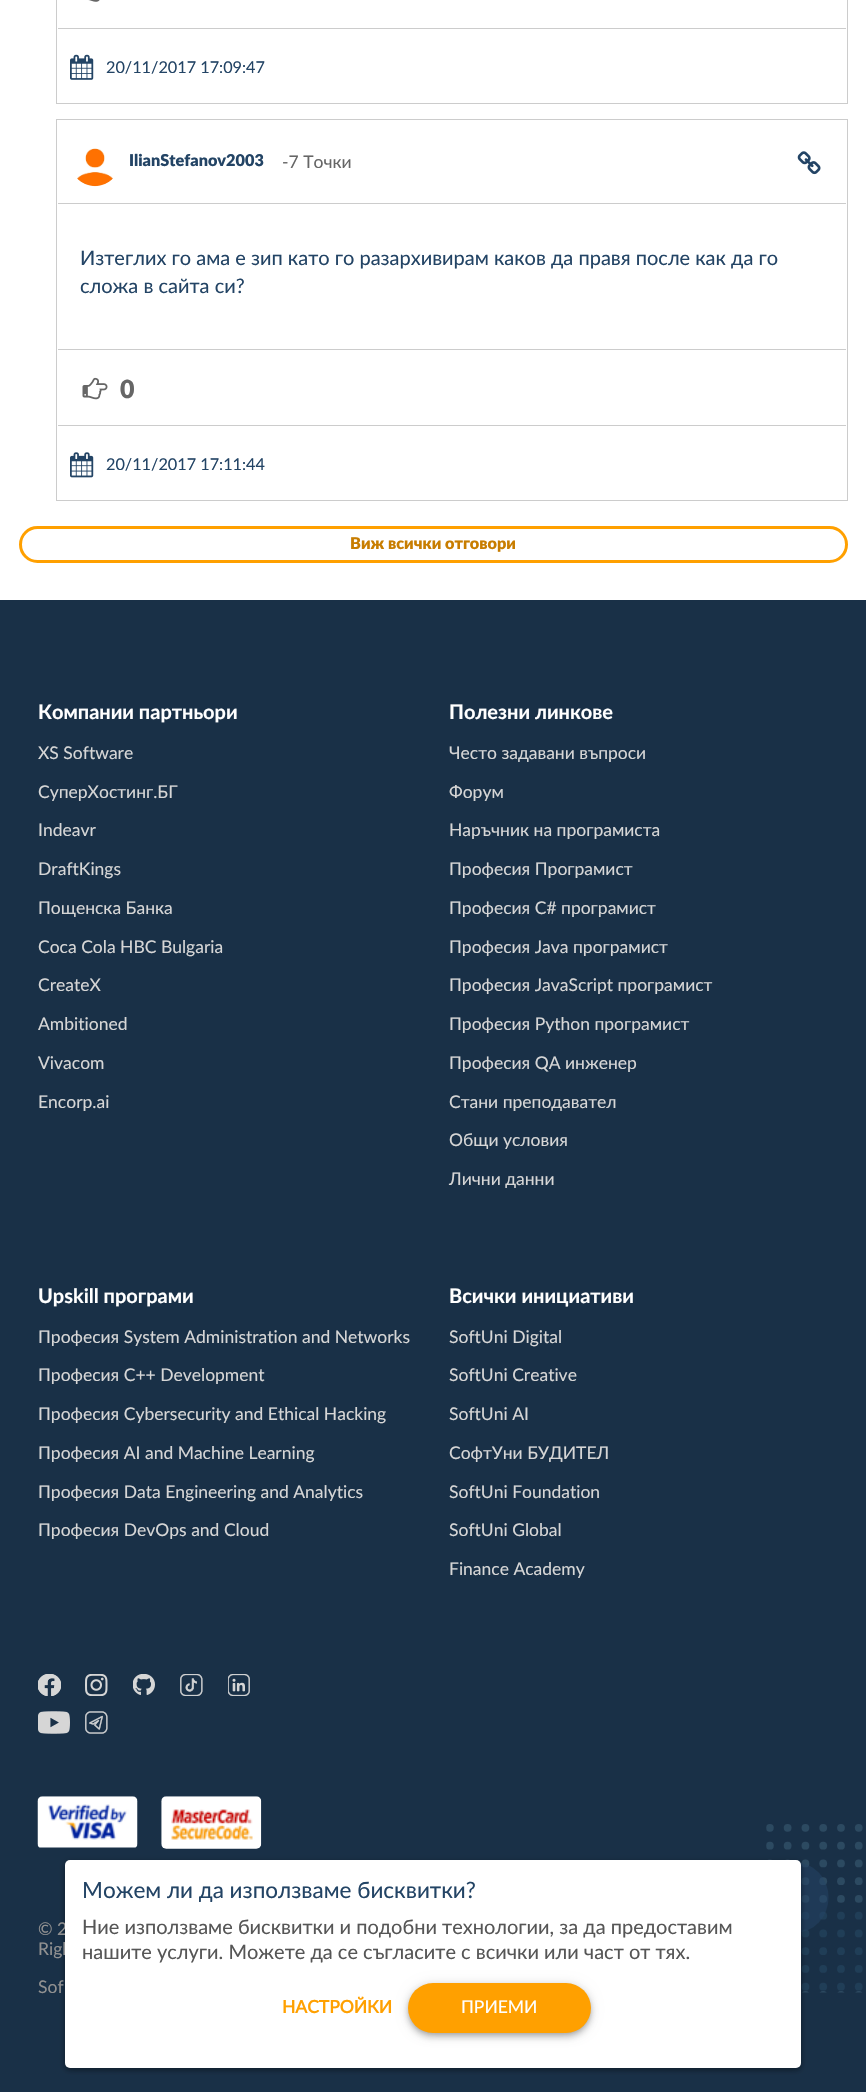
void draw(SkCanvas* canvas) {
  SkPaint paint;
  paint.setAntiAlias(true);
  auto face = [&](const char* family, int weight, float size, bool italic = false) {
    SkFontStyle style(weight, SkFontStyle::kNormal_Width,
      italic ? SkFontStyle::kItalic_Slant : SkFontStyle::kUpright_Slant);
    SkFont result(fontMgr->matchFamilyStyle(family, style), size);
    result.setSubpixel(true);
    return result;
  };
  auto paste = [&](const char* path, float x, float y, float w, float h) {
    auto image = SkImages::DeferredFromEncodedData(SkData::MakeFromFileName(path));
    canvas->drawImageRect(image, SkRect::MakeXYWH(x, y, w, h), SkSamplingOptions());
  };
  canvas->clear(0xff193047);
  paint.setColor(0xffffffff);
  canvas->drawRect(SkRect::MakeXYWH(0, 0, 866, 600), paint);
  paint.setStroke(true);
  paint.setStrokeWidth(1);
  paint.setColor(0xffcccccc);
  canvas->drawRect(SkRect::MakeXYWH(56.5f, -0.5f, 791, 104), paint);
  paste("img/1.png", 88, 0, 12, 2);
  paint.setStroke(false);
  canvas->drawRect(SkRect::MakeXYWH(58, 28, 788, 1), paint);
  paste("img/2.png", 70, 54, 24, 26);
  paint.setStroke(true);
  canvas->drawRect(SkRect::MakeXYWH(56.5f, 119.5f, 791, 381), paint);
  paint.setStroke(false);
  canvas->drawRect(SkRect::MakeXYWH(58, 203, 788, 1), paint);
  paste("img/3.png", 77, 148, 36, 39);
  paste("img/4.png", 797, 151, 24, 24);
  canvas->drawRect(SkRect::MakeXYWH(58, 349, 788, 1), paint);
  paste("img/5.png", 82, 377, 26, 23);
  canvas->drawRect(SkRect::MakeXYWH(58, 425, 788, 1), paint);
  paste("img/6.png", 70, 452, 24, 26);
  paint.setStroke(true);
  paint.setStrokeWidth(3);
  paint.setColor(0xffffa000);
  canvas->drawRoundRect(SkRect::MakeXYWH(20.5f, 527.5f, 826, 34), 17, 17, paint);
  paste("img/7.png", 38, 1674, 23, 22);
  paste("img/8.png", 38, 1674, 23, 22);
  paste("img/9.png", 85, 1674, 23, 22);
  paste("img/10.png", 133, 1674, 22, 21);
  paste("img/11.png", 180, 1674, 23, 22);
  paste("img/12.png", 228, 1674, 22, 22);
  paste("img/13.png", 38, 1711, 32, 23);
  paste("img/14.png", 85, 1711, 23, 23);
  paste("img/15.png", 37, 1796, 101, 52);
  paste("img/16.png", 161, 1796, 101, 53);
  paste("img/17.png", 766, 1824, 97, 169);
  paint.setStroke(false);
  paint.setColor(0x80234465);
  canvas->drawOval(SkRect::MakeXYWH(763.5f, 1862.5f, 65, 70), paint);
  paint.setColor(0x33000000);
  paint.setMaskFilter(SkMaskFilter::MakeBlur(kNormal_SkBlurStyle, 3));
  canvas->drawRoundRect(SkRect::MakeXYWH(65, 1861, 736, 208), 5, 5, paint);
  paint.setMaskFilter(nullptr);
  paint.setColor(0x1f000000);
  paint.setMaskFilter(SkMaskFilter::MakeBlur(kNormal_SkBlurStyle, 2.5f));
  canvas->drawRoundRect(SkRect::MakeXYWH(65, 1864, 736, 207), 5, 5, paint);
  paint.setMaskFilter(nullptr);
  paint.setColor(0x24000000);
  paint.setMaskFilter(SkMaskFilter::MakeBlur(kNormal_SkBlurStyle, 2.5f));
  canvas->drawRoundRect(SkRect::MakeXYWH(65, 1863, 736, 207), 5, 5, paint);
  paint.setMaskFilter(nullptr);
  auto f0 = face("Lato", 400, 16.25f);
  paint.setColor(0xff234465);
  canvas->drawString("20/11/2017 17:09:47", 106, 73, f0, paint);
  auto f1 = face("Lato", 900, 16.25f);
  canvas->drawString("IlianStefanov2003", 129, 166, f1, paint);
  auto f2 = face("Lato", 400, 17.5f);
  paint.setColor(0xff666666);
  canvas->drawString("-7 Точки", 282, 168, f2, paint);
  auto f3 = face("Lato", 400, 20);
  paint.setColor(0xff234465);
  canvas->drawString("Изтеглих го ама е зип като го разархивирам каков да правя после как да го", 80, 265, f3, paint);
  canvas->drawString("сложа в сайта си?", 80, 293, f3, paint);
  auto f4 = face("Lato", 900, 25);
  paint.setColor(0xff666666);
  canvas->drawString("0", 120, 398, f4, paint);
  paint.setColor(0xff234465);
  canvas->drawString("20/11/2017 17:11:44", 106, 470, f0, paint);
  paint.setColor(0xffc87d00);
  canvas->drawString("Виж всички отговори", 350, 549, f1, paint);
  auto f5 = face("Lato", 700, 20);
  paint.setColor(0xffffffff);
  canvas->drawString("Компании партньори", 38, 719, f5, paint);
  paint.setColor(0xffd6d6d6);
  {
    const struct { const char* s; float x, y; } items[] = {
      {"XS Software", 38, 759},
      {"СуперХостинг.БГ", 38, 798},
      {"Indeavr", 38, 836},
      {"DraftKings", 38, 875},
      {"Пощенска Банка", 38, 914},
      {"Coca Cola HBC Bulgaria", 38, 953},
      {"CreateX", 38, 991},
      {"Ambitioned", 38, 1030},
      {"Vivacom", 38, 1069},
      {"Encorp.ai", 38, 1108},
    };
    for (auto [s, x, y] : items) {
      canvas->drawString(s, x, y, f2, paint);
    }
  }
  paint.setColor(0xffffffff);
  canvas->drawString("Полезни линкове", 449, 719, f5, paint);
  paint.setColor(0xffd6d6d6);
  {
    const struct { const char* s; float x, y; } items[] = {
      {"Често задавани въпроси", 449, 759},
      {"Форум", 449, 798},
      {"Наръчник на програмиста", 449, 836},
      {"Професия Програмист", 449, 875},
      {"Професия C# програмист", 449, 914},
      {"Професия Java програмист", 449, 953},
      {"Професия JavaScript програмист", 449, 991},
      {"Професия Python програмист", 449, 1030},
      {"Професия QA инженер", 449, 1069},
      {"Стани преподавател", 449, 1108},
      {"Общи условия", 449, 1146},
      {"Лични данни", 449, 1185},
    };
    for (auto [s, x, y] : items) {
      canvas->drawString(s, x, y, f2, paint);
    }
  }
  paint.setColor(0xffffffff);
  canvas->drawString("Upskill програми", 38, 1303, f5, paint);
  paint.setColor(0xffd6d6d6);
  {
    const struct { const char* s; float x, y; } items[] = {
      {"Професия System Administration and Networks", 38, 1343},
      {"Професия C++ Development", 38, 1381},
      {"Професия Cybersecurity and Ethical Hacking", 38, 1420},
      {"Професия AI and Machine Learning", 38, 1459},
      {"Професия Data Engineering and Analytics", 38, 1498},
      {"Професия DevOps and Cloud", 38, 1536},
    };
    for (auto [s, x, y] : items) {
      canvas->drawString(s, x, y, f2, paint);
    }
  }
  paint.setColor(0xffffffff);
  canvas->drawString("Всички инициативи", 449, 1303, f5, paint);
  paint.setColor(0xffd6d6d6);
  {
    const struct { const char* s; float x, y; } items[] = {
      {"SoftUni Digital", 449, 1343},
      {"SoftUni Creative", 449, 1381},
      {"SoftUni AI", 449, 1420},
      {"СофтУни БУДИТЕЛ", 449, 1459},
      {"SoftUni Foundation", 449, 1498},
      {"SoftUni Global", 449, 1536},
      {"Finance Academy", 449, 1575},
    };
    for (auto [s, x, y] : items) {
      canvas->drawString(s, x, y, f2, paint);
    }
  }
  paint.setColor(0xff919191);
  {
    const struct { const char* s; float x, y; } items[] = {
      {"© 2", 38, 1935},
      {"Righ", 38, 1955},
      {"Sof", 38, 1993},
    };
    for (auto [s, x, y] : items) {
      canvas->drawString(s, x, y, f2, paint);
    }
  }
  paint.setColor(0xffffffff);
  canvas->drawRoundRect(SkRect::MakeXYWH(65, 1860, 736, 208), 5, 5, paint);
  auto f6 = face("Lato", 400, 22.5f);
  paint.setColor(0xff234465);
  canvas->drawString("Можем ли да използваме бисквитки?", 82, 1898, f6, paint);
  paint.setColor(0xff565656);
  canvas->drawString("Ние използваме бисквитки и подобни технологии, за да предоставим", 82, 1934, f3, paint);
  canvas->drawString("нашите услуги. Можете да се съгласите с всички или част от тях.", 82, 1959, f3, paint);
  auto f7 = face("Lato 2", 700, 17.5f);
  paint.setColor(0xffffa000);
  canvas->drawString("НАСТРОЙКИ", 282, 2013, f7, paint);
  paint.setColor(0x33000000);
  paint.setMaskFilter(SkMaskFilter::MakeBlur(kNormal_SkBlurStyle, 2.5f));
  canvas->drawRoundRect(SkRect::MakeXYWH(409, 1986, 181, 48), 24, 24, paint);
  paint.setMaskFilter(nullptr);
  paint.setColor(0x1f000000);
  paint.setMaskFilter(SkMaskFilter::MakeBlur(kNormal_SkBlurStyle, 6));
  canvas->drawRoundRect(SkRect::MakeXYWH(408, 1984, 183, 50), 25, 25, paint);
  paint.setMaskFilter(nullptr);
  paint.setColor(0x24000000);
  paint.setMaskFilter(SkMaskFilter::MakeBlur(kNormal_SkBlurStyle, 3));
  canvas->drawRoundRect(SkRect::MakeXYWH(408, 1988, 183, 50), 25, 25, paint);
  paint.setMaskFilter(nullptr);
  paint.setColor(0xffffa000);
  canvas->drawRoundRect(SkRect::MakeXYWH(408, 1983, 183, 50), 25, 25, paint);
  paint.setColor(0xffffffff);
  canvas->drawString("ПРИЕМИ", 461, 2013, f2, paint);
}
